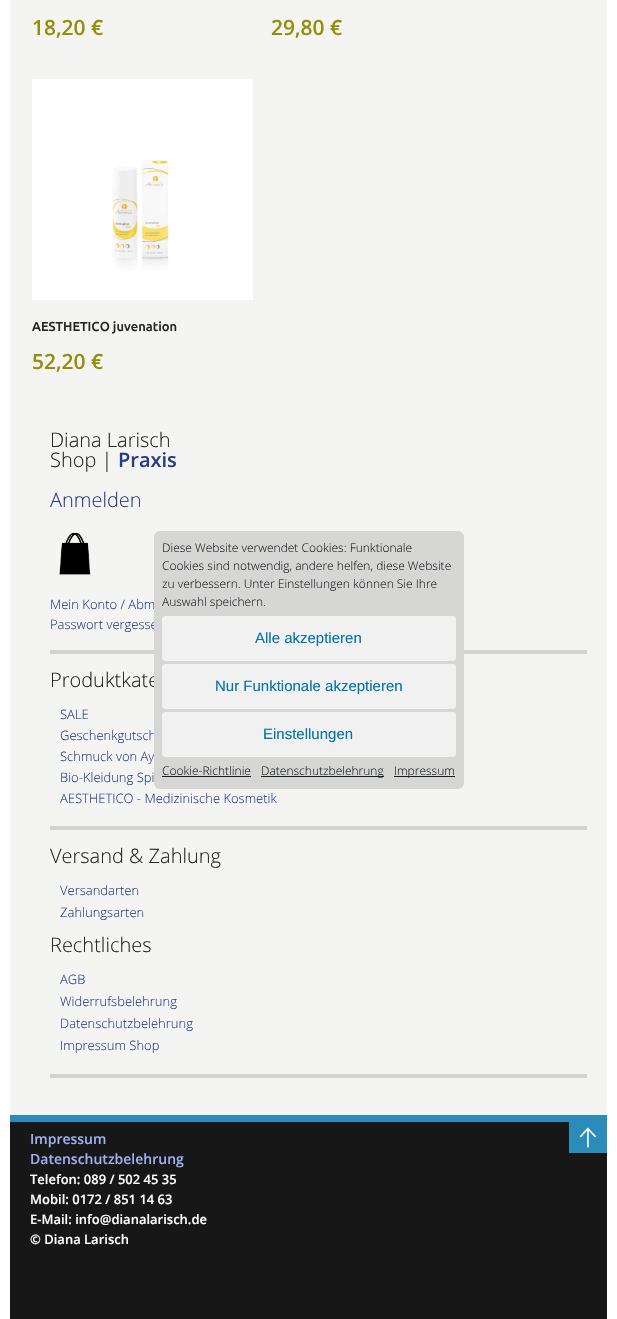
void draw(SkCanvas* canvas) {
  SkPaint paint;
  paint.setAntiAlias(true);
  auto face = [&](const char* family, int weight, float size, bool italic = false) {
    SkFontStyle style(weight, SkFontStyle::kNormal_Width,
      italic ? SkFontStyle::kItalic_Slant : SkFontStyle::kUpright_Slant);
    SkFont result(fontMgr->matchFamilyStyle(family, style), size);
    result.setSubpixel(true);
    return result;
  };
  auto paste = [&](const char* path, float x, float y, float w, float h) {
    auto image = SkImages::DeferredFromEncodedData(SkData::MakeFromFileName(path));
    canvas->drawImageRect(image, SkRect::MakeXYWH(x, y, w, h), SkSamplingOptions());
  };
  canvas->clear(0xffffffff);
  paint.setColor(0xfff4f4f2);
  canvas->drawRect(SkRect::MakeXYWH(10, 0, 597, 1115), paint);
  paint.setColor(0xffffffff);
  canvas->drawRect(SkRect::MakeXYWH(32, 79, 221, 221), paint);
  paste("img/1.png", 112, 160, 57, 111);
  paint.setColor(0xffd2d2d2);
  canvas->drawRect(SkRect::MakeXYWH(50, 650, 537, 4), paint);
  paste("img/2.png", 59, 532, 32, 43);
  {
    const struct { float x, y, w, h; SkColor color; } items[] = {
      {50, 826, 537, 4, 0xffd2d2d2},
      {50, 1074, 537, 4, 0xffd2d2d2},
      {10, 1115, 597, 7, 0xff2c8cb9},
      {10, 1122, 597, 197, 0xff171717},
      {569, 1122, 38, 31, 0xff2c8cb9},
    };
    for (auto [x, y, w, h, color] : items) {
      paint.setColor(color);
      canvas->drawRect(SkRect::MakeXYWH(x, y, w, h), paint);
    }
  }
  paste("img/3.png", 579, 1127, 18, 21);
  auto f0 = face("Open Sans", 600, 21);
  paint.setColor(0xff958e09);
  canvas->drawString("18,20 €", 32, 35, f0, paint);
  canvas->drawString("29,80 €", 271, 35, f0, paint);
  auto f1 = face("Ubuntu", 500, 13);
  paint.setColor(0xff262626);
  canvas->drawString("AESTHETICO juvenation", 32, 331, f1, paint);
  paint.setColor(0xff958e09);
  canvas->drawString("52,20 €", 32, 369, f0, paint);
  auto f2 = face("Open Sans", 300, 20);
  paint.setColor(0xff262626);
  canvas->drawString("Diana Larisch", 50, 447, f2, paint);
  canvas->drawString("Shop |", 50, 467, f2, paint);
  auto f3 = face("Open Sans", 600, 20);
  paint.setColor(0xff253d87);
  canvas->drawString("Praxis", 118, 467, f3, paint);
  canvas->drawString("Anmelden", 50, 507, f2, paint);
  auto f4 = face("Open Sans", 300, 13);
  canvas->drawString("Mein Konto / Abm", 50, 609, f4, paint);
  canvas->drawString("Passwort vergesse", 50, 629, f4, paint);
  paint.setColor(0xff262626);
  canvas->drawString("Produktkate", 50, 687, f2, paint);
  paint.setColor(0xff253d87);
  {
    const struct { const char* s; float x, y; } items[] = {
      {"SALE", 60, 719},
      {"Geschenkgutsch", 60, 740},
      {"Schmuck von Ay", 60, 761},
      {"Bio-Kleidung Spi", 60, 782},
      {"AESTHETICO - Medizinische Kosmetik", 60, 803},
    };
    for (auto [s, x, y] : items) {
      canvas->drawString(s, x, y, f4, paint);
    }
  }
  paint.setColor(0xff262626);
  canvas->drawString("Versand & Zahlung", 50, 863, f2, paint);
  paint.setColor(0xff253d87);
  canvas->drawString("Versandarten", 60, 895, f4, paint);
  canvas->drawString("Zahlungsarten", 60, 917, f4, paint);
  paint.setColor(0xff262626);
  canvas->drawString("Rechtliches", 50, 952, f2, paint);
  paint.setColor(0xff253d87);
  {
    const struct { const char* s; float x, y; } items[] = {
      {"AGB", 60, 984},
      {"Widerrufsbelehrung", 60, 1006},
      {"Datenschutzbelehrung", 60, 1028},
      {"Impressum Shop", 60, 1050},
    };
    for (auto [s, x, y] : items) {
      canvas->drawString(s, x, y, f4, paint);
    }
  }
  paint.setColor(0xffd6d6d4);
  canvas->drawRoundRect(SkRect::MakeXYWH(154, 531, 310, 258), 6, 6, paint);
  auto f5 = face("Open Sans", 300, 12);
  paint.setColor(0xff191e23);
  {
    const struct { const char* s; float x, y; } items[] = {
      {"Diese Website verwendet Cookies: Funktionale", 162, 552},
      {"Cookies sind notwendig, andere helfen, diese Website", 162, 570},
      {"zu verbessern. Unter Einstellungen können Sie Ihre", 162, 588},
      {"Auswahl speichern.", 162, 606},
    };
    for (auto [s, x, y] : items) {
      canvas->drawString(s, x, y, f5, paint);
    }
  }
  paint.setColor(0xfff1f1f1);
  canvas->drawRoundRect(SkRect::MakeXYWH(162.5f, 616.5f, 293, 44), 2.5f, 2.5f, paint);
  paint.setStroke(true);
  paint.setStrokeWidth(1);
  canvas->drawRoundRect(SkRect::MakeXYWH(162.5f, 616.5f, 293, 44), 2.5f, 2.5f, paint);
  auto f6 = face("Liberation Sans", 400, 15);
  paint.setStroke(false);
  paint.setColor(0xff0073aa);
  canvas->drawString("Alle akzeptieren", 255, 643, f6, paint);
  paint.setColor(0xfff1f1f1);
  canvas->drawRoundRect(SkRect::MakeXYWH(162.5f, 664.5f, 293, 44), 2.5f, 2.5f, paint);
  paint.setStroke(true);
  canvas->drawRoundRect(SkRect::MakeXYWH(162.5f, 664.5f, 293, 44), 2.5f, 2.5f, paint);
  paint.setStroke(false);
  paint.setColor(0xff0073aa);
  canvas->drawString("Nur Funktionale akzeptieren", 215, 691, f6, paint);
  paint.setColor(0xfff1f1f1);
  canvas->drawRoundRect(SkRect::MakeXYWH(162.5f, 712.5f, 293, 44), 2.5f, 2.5f, paint);
  paint.setStroke(true);
  canvas->drawRoundRect(SkRect::MakeXYWH(162.5f, 712.5f, 293, 44), 2.5f, 2.5f, paint);
  paint.setStroke(false);
  paint.setColor(0xff0073aa);
  canvas->drawString("Einstellungen", 263, 739, f6, paint);
  paint.setColor(0xff191e23);
  canvas->drawString("Cookie-Richtlinie", 162, 775, f5, paint);
  canvas->drawRect(SkRect::MakeXYWH(162, 776, 89, 1), paint);
  canvas->drawRect(SkRect::MakeXYWH(261, 776, 123, 1), paint);
  canvas->drawString("Datenschutzbelehrung", 261, 775, f5, paint);
  canvas->drawRect(SkRect::MakeXYWH(394, 776, 61, 1), paint);
  canvas->drawString("Impressum", 394, 775, f5, paint);
  auto f7 = face("Open Sans", 600, 14);
  paint.setColor(0xff9eb2f1);
  canvas->drawString("Impressum", 30, 1144, f7, paint);
  canvas->drawString("Datenschutzbelehrung", 30, 1164, f7, paint);
  auto f8 = face("Open Sans", 600, 13);
  paint.setColor(0xffffffff);
  {
    const struct { const char* s; float x, y; } items[] = {
      {"Telefon: 089 / 502 45 35", 30, 1184},
      {"Mobil: 0172 / 851 14 63", 30, 1204},
      {"E-Mail: info@dianalarisch.de", 30, 1224},
      {"© Diana Larisch", 30, 1244},
    };
    for (auto [s, x, y] : items) {
      canvas->drawString(s, x, y, f8, paint);
    }
  }
}
